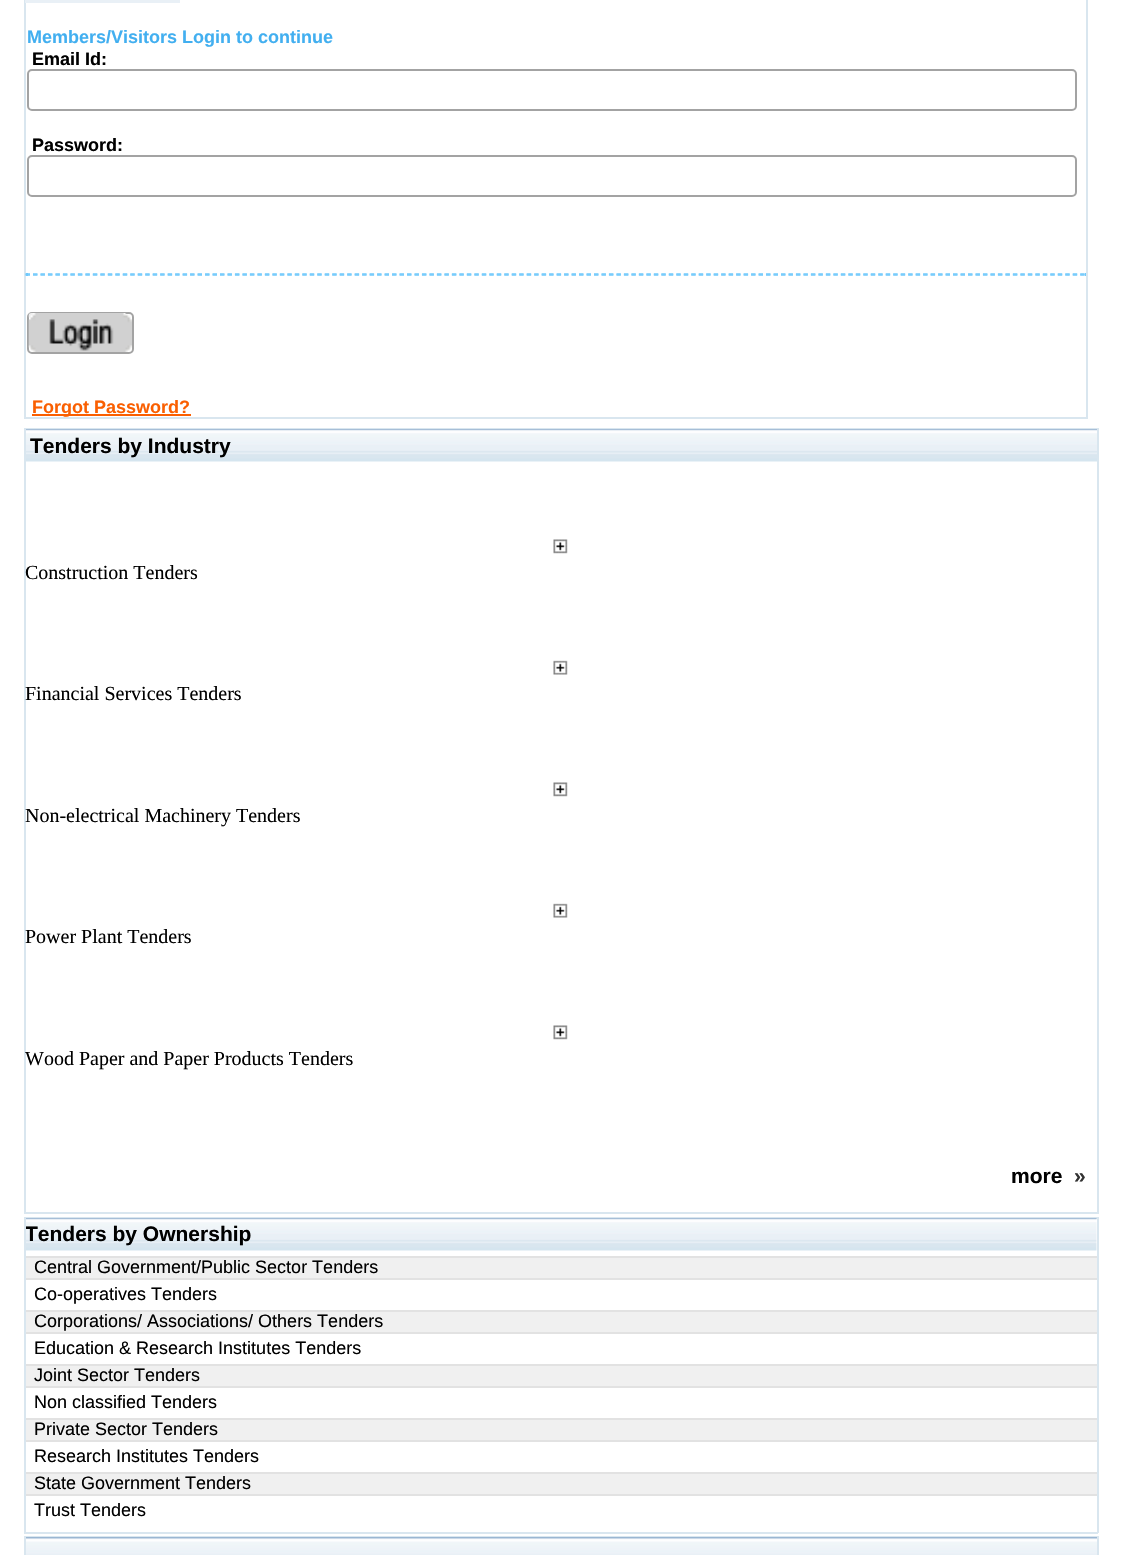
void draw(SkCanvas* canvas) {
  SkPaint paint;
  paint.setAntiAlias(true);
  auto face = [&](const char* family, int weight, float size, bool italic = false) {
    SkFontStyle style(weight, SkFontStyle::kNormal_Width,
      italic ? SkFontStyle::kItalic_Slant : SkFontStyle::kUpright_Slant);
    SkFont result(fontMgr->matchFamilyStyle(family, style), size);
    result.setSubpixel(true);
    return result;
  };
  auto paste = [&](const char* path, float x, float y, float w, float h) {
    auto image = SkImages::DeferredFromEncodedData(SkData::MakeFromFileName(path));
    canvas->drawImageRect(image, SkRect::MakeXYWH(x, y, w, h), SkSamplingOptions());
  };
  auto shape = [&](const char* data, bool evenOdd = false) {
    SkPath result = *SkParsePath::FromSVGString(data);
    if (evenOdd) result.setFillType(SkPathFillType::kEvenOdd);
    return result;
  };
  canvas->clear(0xffffffff);
  paint.setStroke(true);
  paint.setStrokeWidth(2);
  paint.setColor(0xffd9e6ef);
  canvas->drawRect(SkRect::MakeXYWH(25, -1, 1062, 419), paint);
  paint.setStroke(false);
  paint.setColor(0xffe9f0f6);
  canvas->drawRect(SkRect::MakeXYWH(25, 0, 155, 3), paint);
  paint.setStroke(true);
  paint.setColor(0xffa3a3a3);
  canvas->drawRoundRect(SkRect::MakeXYWH(28, 70, 1048, 40), 4, 4, paint);
  canvas->drawRoundRect(SkRect::MakeXYWH(28, 156, 1048, 40), 4, 4, paint);
  paint.setStrokeWidth(1.5f);
  paint.setColor(0xff6fc9fc);
  paint.setPathEffect(SkDashPathEffect::Make({{4.5f, 2.98f}}, 0));
  canvas->drawPath(shape("M25.5 274H1086"), paint);
  paint.setPathEffect(nullptr);
  paint.setStroke(false);
  canvas->drawRect(SkRect::MakeXYWH(1085, 273, 1, 3), paint);
  paint.setStroke(true);
  paint.setPathEffect(SkDashPathEffect::Make({{4.5f, 2.98f}}, 0));
  canvas->drawPath(shape("M25.5 275H1086"), paint);
  paint.setPathEffect(nullptr);
  paint.setStroke(false);
  canvas->drawRect(SkRect::MakeXYWH(26, 273, 2, 3), paint);
  paint.setStroke(true);
  paint.setStrokeWidth(2);
  paint.setColor(0xffa3a3a3);
  canvas->drawRoundRect(SkRect::MakeXYWH(28, 313, 105, 40), 4, 4, paint);
  paste("img/1.png", 28, 313, 104, 39);
  paint.setStroke(false);
  {
    const struct { float x, y, w, h; SkColor color; } items[] = {
      {32, 414, 159, 2, 0xfffa5f01},
      {24, 428, 1074, 1, 0xffd9e6ef},
      {1097, 428, 2, 786, 0xffd9e6ef},
      {24, 1212, 1074, 2, 0xffd9e6ef},
      {24, 428, 2, 786, 0xffd9e6ef},
    };
    for (auto [x, y, w, h, color] : items) {
      paint.setColor(color);
      canvas->drawRect(SkRect::MakeXYWH(x, y, w, h), paint);
    }
  }
  paste("img/2.png", 26, 429, 1071, 33);
  paste("img/3.png", 553, 539, 15, 15);
  paste("img/4.png", 553, 660, 15, 15);
  paste("img/3.png", 553, 782, 15, 15);
  paste("img/4.png", 553, 903, 15, 15);
  paste("img/3.png", 553, 1025, 15, 15);
  {
    const struct { float x, y, w, h; SkColor color; } items[] = {
      {24, 1217, 1074, 2, 0xffd9e6ef},
      {1097, 1217, 2, 316, 0xffd9e6ef},
      {24, 1532, 1074, 2, 0xffd9e6ef},
      {24, 1217, 2, 316, 0xffd9e6ef},
    };
    for (auto [x, y, w, h, color] : items) {
      paint.setColor(color);
      canvas->drawRect(SkRect::MakeXYWH(x, y, w, h), paint);
    }
  }
  paste("img/5.png", 26, 1218, 1071, 33);
  {
    const struct { float x, y, w, h; SkColor color; } items[] = {
      {26, 1258, 1071, 20, 0xfff0f0f0},
      {26, 1256, 1071, 2, 0xffe2e2e2},
      {26, 1278, 1071, 2, 0xffe2e2e2},
      {26, 1312, 1071, 20, 0xfff0f0f0},
      {26, 1310, 1071, 2, 0xffe2e2e2},
      {26, 1332, 1071, 2, 0xffe2e2e2},
      {26, 1366, 1071, 20, 0xfff0f0f0},
      {26, 1364, 1071, 2, 0xffe2e2e2},
      {26, 1386, 1071, 2, 0xffe2e2e2},
      {26, 1420, 1071, 20, 0xfff0f0f0},
      {26, 1418, 1071, 2, 0xffe2e2e2},
      {26, 1440, 1071, 2, 0xffe2e2e2},
      {26, 1474, 1071, 20, 0xfff0f0f0},
      {26, 1472, 1071, 2, 0xffe2e2e2},
      {26, 1494, 1071, 2, 0xffe2e2e2},
      {24, 1536, 1074, 1, 0xffd9e6ef},
      {1097, 1536, 2, 19, 0xffd9e6ef},
      {24, 1536, 2, 19, 0xffd9e6ef},
    };
    for (auto [x, y, w, h, color] : items) {
      paint.setColor(color);
      canvas->drawRect(SkRect::MakeXYWH(x, y, w, h), paint);
    }
  }
  paste("img/6.png", 26, 1537, 1071, 18);
  auto f0 = face("Liberation Sans", 700, 18);
  paint.setColor(0xff42aff0);
  canvas->drawString("Members/Visitors Login to continue", 27, 43, f0, paint);
  paint.setColor(0xff000000);
  canvas->drawString("Email Id:", 32, 65, f0, paint);
  canvas->drawString("Password:", 32, 151, f0, paint);
  paint.setColor(0xfffa5f01);
  canvas->drawString("Forgot Password?", 32, 413, f0, paint);
  auto f1 = face("Liberation Sans", 700, 21);
  paint.setColor(0xff000000);
  canvas->drawString("Tenders by Industry", 30, 453, f1, paint);
  auto f2 = face("Liberation Serif", 400, 20);
  {
    const struct { const char* s; float x, y; } items[] = {
      {"Construction Tenders", 25, 579},
      {"Financial Services Tenders", 25, 700},
      {"Non-electrical Machinery Tenders", 25, 822},
      {"Power Plant Tenders", 25, 943},
      {"Wood Paper and Paper Products Tenders", 25, 1065},
    };
    for (auto [s, x, y] : items) {
      canvas->drawString(s, x, y, f2, paint);
    }
  }
  canvas->drawString("more", 1011, 1183, f1, paint);
  paint.setColor(0xff333333);
  canvas->drawString("»", 1074, 1183, f1, paint);
  canvas->save();
  canvas->clipRect(SkRect::MakeXYWH(26, 1218, 1071, 33));
  paint.setColor(0xff000000);
  canvas->drawString("Tenders by Ownership", 25, 1241, f1, paint);
  canvas->restore();
  auto f3 = face("Liberation Sans", 400, 18);
  {
    const struct { const char* s; float x, y; } items[] = {
      {"Central Government/Public Sector Tenders", 34, 1273},
      {"Co-operatives Tenders", 34, 1300},
      {"Corporations/ Associations/ Others Tenders", 34, 1327},
      {"Education & Research Institutes Tenders", 34, 1354},
      {"Joint Sector Tenders", 34, 1381},
      {"Non classified Tenders", 34, 1408},
      {"Private Sector Tenders", 34, 1435},
      {"Research Institutes Tenders", 34, 1462},
      {"State Government Tenders", 34, 1489},
      {"Trust Tenders", 34, 1516},
    };
    for (auto [s, x, y] : items) {
      canvas->drawString(s, x, y, f3, paint);
    }
  }
}
